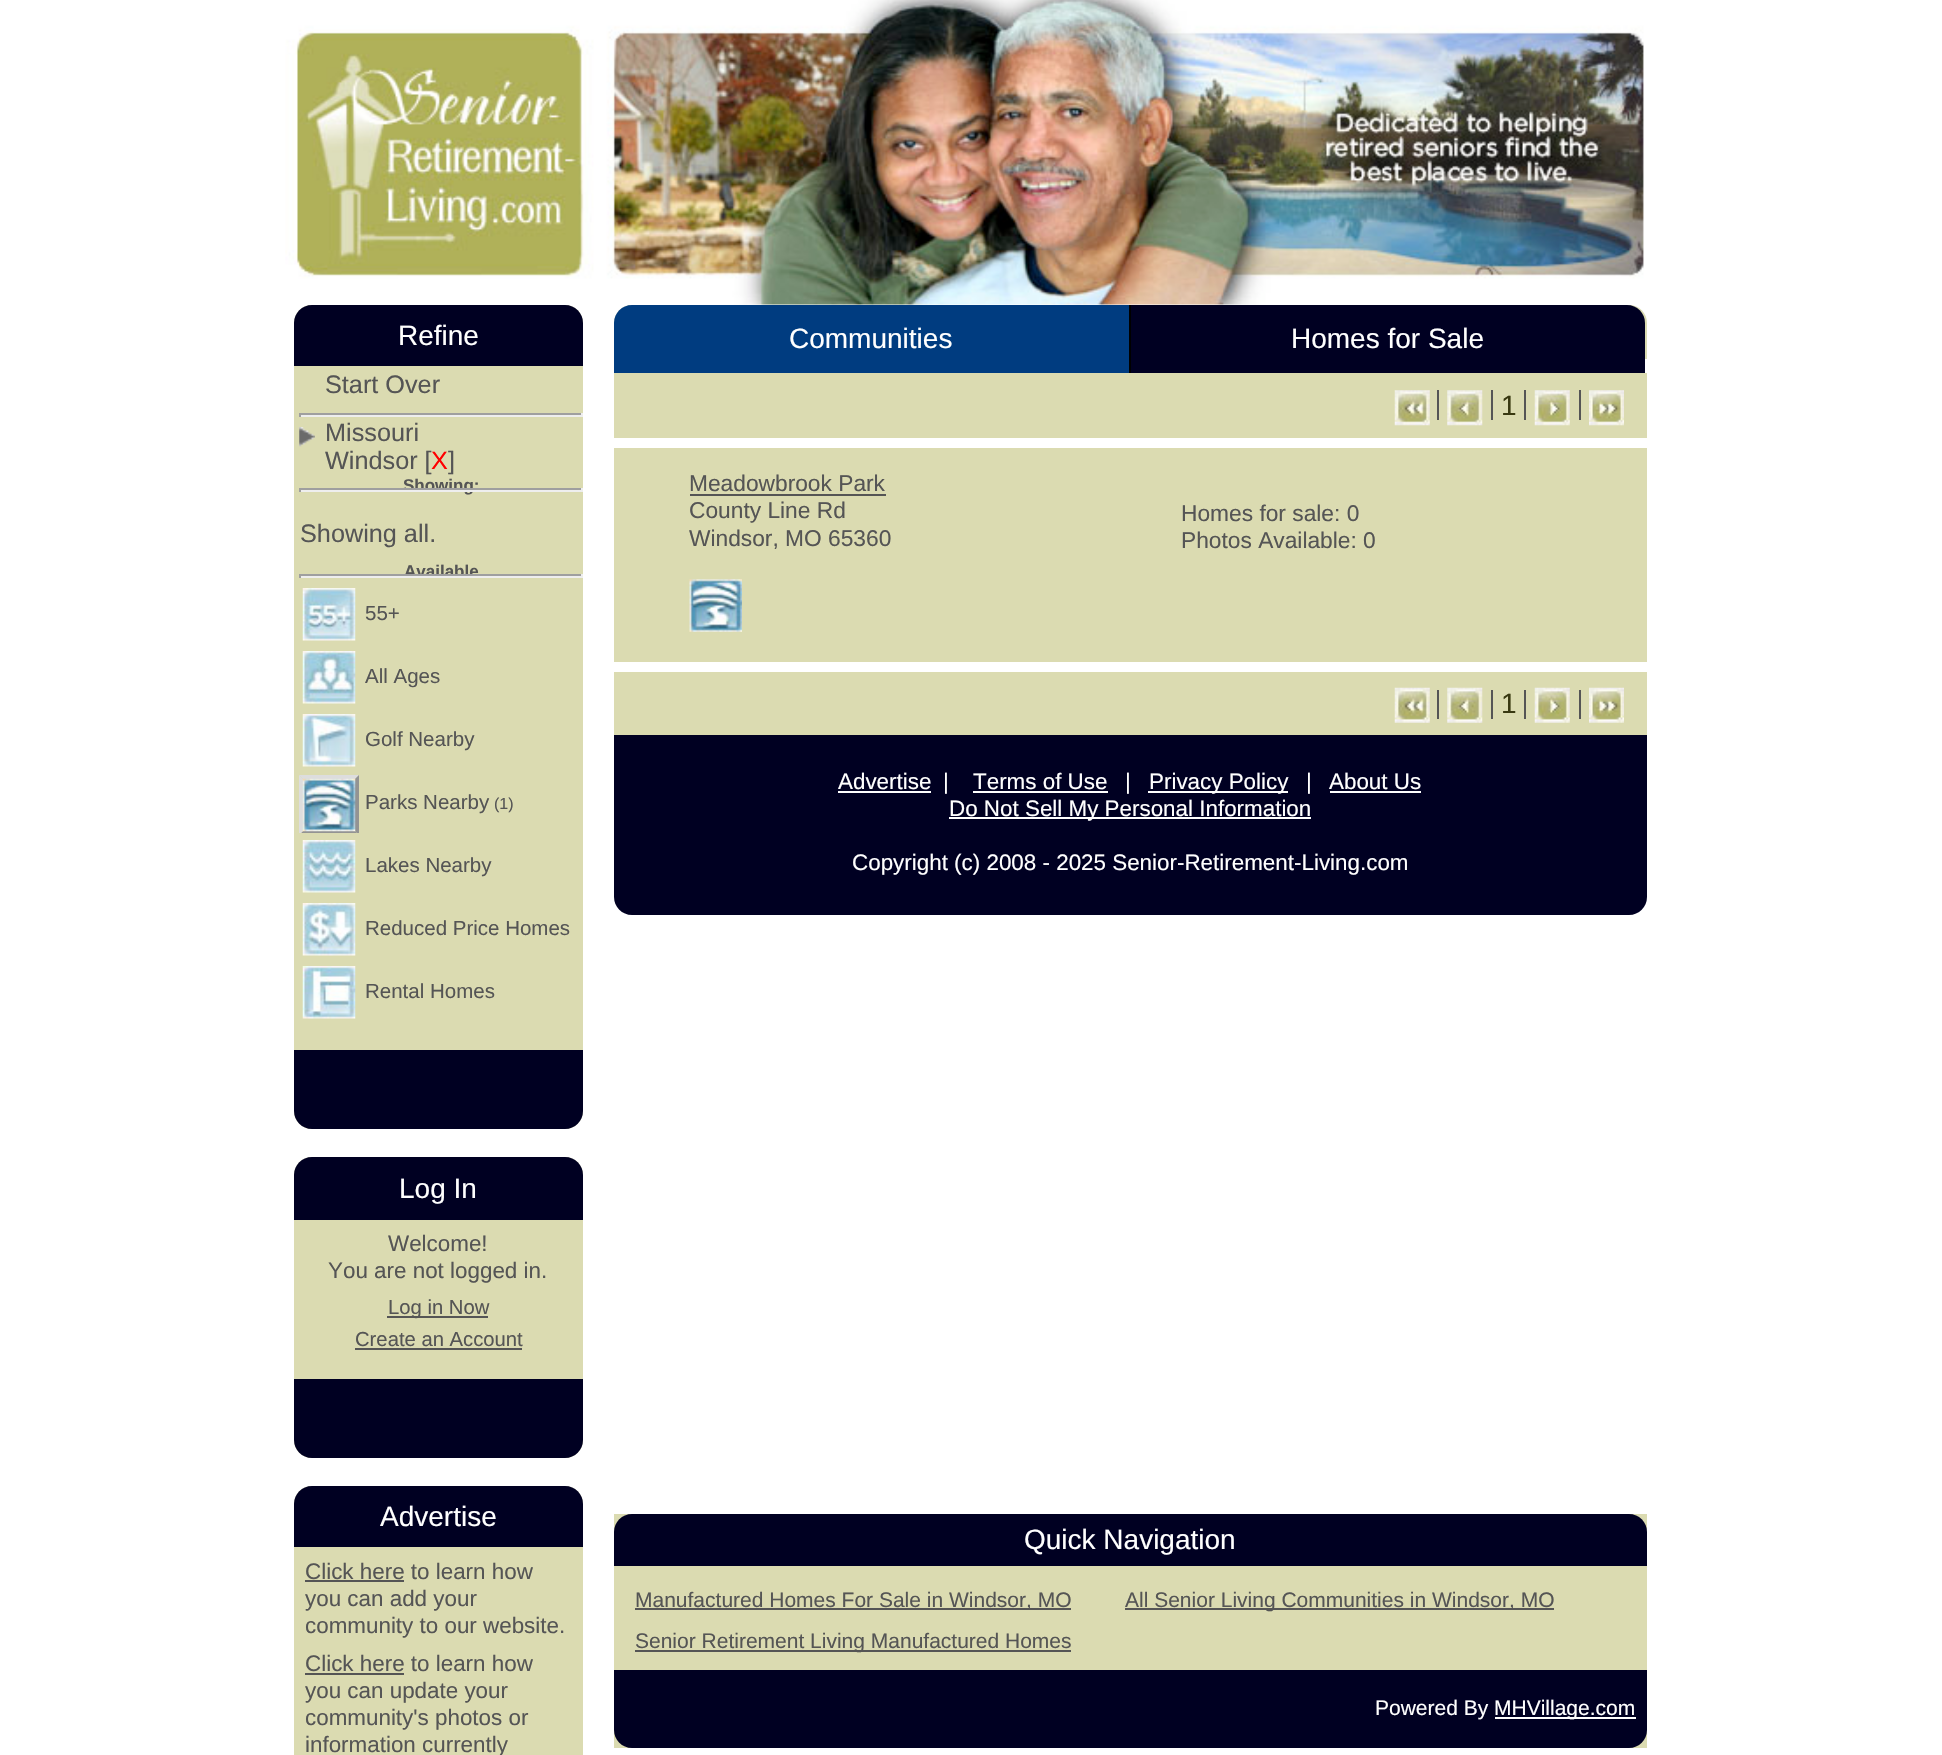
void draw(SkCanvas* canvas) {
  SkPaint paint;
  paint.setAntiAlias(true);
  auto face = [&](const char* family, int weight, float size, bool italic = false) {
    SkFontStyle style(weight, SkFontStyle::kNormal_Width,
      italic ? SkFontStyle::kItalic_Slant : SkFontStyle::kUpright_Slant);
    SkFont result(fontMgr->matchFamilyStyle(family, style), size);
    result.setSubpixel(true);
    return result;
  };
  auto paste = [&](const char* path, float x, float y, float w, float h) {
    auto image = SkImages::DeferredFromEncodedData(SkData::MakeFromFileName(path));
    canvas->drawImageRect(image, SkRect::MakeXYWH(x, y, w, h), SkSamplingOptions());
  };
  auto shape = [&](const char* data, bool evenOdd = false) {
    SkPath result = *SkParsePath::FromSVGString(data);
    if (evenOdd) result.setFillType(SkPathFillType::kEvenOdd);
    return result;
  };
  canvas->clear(0xffffffff);
  paste("img/1.png", 285, 0, 1359, 305);
  paint.setColor(0xffdbdbb1);
  canvas->drawRoundRect(SkRect::MakeXYWH(294, 305, 289, 824), 18, 18, paint);
  paint.setColor(0xff000022);
  canvas->drawPath(shape("M312 305H565C575 305 583 313 583 323V366H294V323C294 313 302 305 312 305Z"), paint);
  {
    const struct { float x, y, w, h; SkColor color; } items[] = {
      {299, 413, 284, 2, 0xff9f9f9f},
      {581, 413, 2, 4, 0xffeeeeee},
      {299, 415, 284, 2, 0xffeeeeee},
      {299, 413, 2, 4, 0xff9f9f9f},
    };
    for (auto [x, y, w, h, color] : items) {
      paint.setColor(color);
      canvas->drawRect(SkRect::MakeXYWH(x, y, w, h), paint);
    }
  }
  paste("img/2.png", 299, 427, 16, 20);
  paste("img/3.png", 302, 588, 54, 53);
  paste("img/4.png", 302, 651, 54, 53);
  paste("img/5.png", 302, 714, 54, 53);
  paint.setColor(0xffdddddd);
  canvas->drawPath(shape("M299 775H359L355 779H303Z"), paint);
  canvas->save();
  canvas->clipRect(SkRect::MakeXYWH(299, 770, 284, 63));
  paint.setColor(0xff939393);
  canvas->drawPath(shape("M359 775V835L355 831V779Z"), paint);
  canvas->drawPath(shape("M359 835H299L303 831H355Z"), paint);
  paint.setColor(0xffdddddd);
  canvas->drawPath(shape("M299 835V775L303 779V831Z"), paint);
  canvas->restore();
  paste("img/6.png", 302, 778, 54, 54);
  paste("img/7.png", 302, 840, 54, 53);
  paste("img/8.png", 302, 903, 54, 53);
  paste("img/9.png", 302, 966, 54, 53);
  paint.setColor(0xff000022);
  canvas->drawPath(shape("M294 1050H583V1111C583 1121 575 1129 565 1129H312C302 1129 294 1121 294 1111Z"), paint);
  paint.setColor(0xffdbdbb1);
  canvas->drawRoundRect(SkRect::MakeXYWH(294, 1157, 289, 301), 18, 18, paint);
  paint.setColor(0xff000022);
  canvas->drawPath(shape("M312 1157H565C575 1157 583 1165 583 1175V1220H294V1175C294 1165 302 1157 312 1157Z"), paint);
  paint.setColor(0xff555555);
  canvas->drawRect(SkRect::MakeXYWH(387, 1316, 101, 2), paint);
  canvas->drawRect(SkRect::MakeXYWH(355, 1348, 167, 2), paint);
  paint.setColor(0xff000022);
  canvas->drawPath(shape("M294 1379H583V1440C583 1450 575 1458 565 1458H312C302 1458 294 1450 294 1440Z"), paint);
  paint.setColor(0xffdbdbb1);
  canvas->drawRoundRect(SkRect::MakeXYWH(294, 1486, 289, 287), 18, 18, paint);
  paint.setColor(0xff000022);
  canvas->drawPath(shape("M312 1486H565C575 1486 583 1494 583 1504V1547H294V1504C294 1494 302 1486 312 1486Z"), paint);
  paint.setColor(0xff555555);
  canvas->drawRect(SkRect::MakeXYWH(305, 1580, 99, 2), paint);
  canvas->drawRect(SkRect::MakeXYWH(305, 1673, 99, 2), paint);
  paint.setColor(0xffdbdbb1);
  canvas->drawPath(shape("M632 305H1629C1639 305 1647 313 1647 323V359H614V323C614 313 622 305 632 305Z"), paint);
  paint.setColor(0xff003c80);
  canvas->drawPath(shape("M632 305H1131V373H614V323C614 313 622 305 632 305Z"), paint);
  paint.setColor(0xff000000);
  canvas->drawRect(SkRect::MakeXYWH(1129, 305, 2, 68), paint);
  paint.setColor(0xff000022);
  canvas->drawPath(shape("M1131 305H1627C1637 305 1645 313 1645 323V373H1131Z"), paint);
  paint.setColor(0xffdbdbb1);
  canvas->drawRect(SkRect::MakeXYWH(614, 373, 1033, 65), paint);
  paste("img/10.png", 1394, 390, 36, 36);
  paint.setColor(0xff555555);
  canvas->drawRect(SkRect::MakeXYWH(1437, 390, 2, 30), paint);
  paste("img/11.png", 1447, 390, 36, 36);
  canvas->drawRect(SkRect::MakeXYWH(1491, 390, 2, 30), paint);
  canvas->drawRect(SkRect::MakeXYWH(1524, 390, 2, 30), paint);
  paste("img/12.png", 1534, 390, 36, 36);
  canvas->drawRect(SkRect::MakeXYWH(1579, 390, 2, 30), paint);
  paste("img/13.png", 1589, 390, 35, 36);
  paint.setColor(0xffdbdbb1);
  canvas->drawRect(SkRect::MakeXYWH(614, 448, 1033, 214), paint);
  paint.setColor(0xff555555);
  canvas->drawRect(SkRect::MakeXYWH(690, 494, 196, 2), paint);
  paste("img/14.png", 689, 579, 53, 53);
  paint.setColor(0xffdbdbb1);
  canvas->drawRect(SkRect::MakeXYWH(614, 672, 1033, 63), paint);
  paste("img/15.png", 1394, 687, 36, 36);
  paint.setColor(0xff555555);
  canvas->drawRect(SkRect::MakeXYWH(1437, 690, 2, 29), paint);
  paste("img/16.png", 1447, 687, 36, 36);
  canvas->drawRect(SkRect::MakeXYWH(1491, 690, 2, 29), paint);
  canvas->drawRect(SkRect::MakeXYWH(1524, 690, 2, 29), paint);
  paste("img/17.png", 1534, 687, 36, 36);
  canvas->drawRect(SkRect::MakeXYWH(1579, 690, 2, 29), paint);
  paste("img/18.png", 1589, 687, 35, 36);
  paint.setColor(0xff000022);
  canvas->drawPath(shape("M614 735H1647V897C1647 907 1639 915 1629 915H632C622 915 614 907 614 897Z"), paint);
  {
    const struct { float x, y, w, h; SkColor color; } items[] = {
      {838, 791, 93, 2, 0xffffffff},
      {973, 791, 135, 2, 0xffffffff},
      {1148, 791, 140, 2, 0xffffffff},
      {1330, 791, 91, 2, 0xffffffff},
      {949, 817, 362, 2, 0xffffffff},
      {614, 1514, 1033, 234, 0xffdbdbb1},
    };
    for (auto [x, y, w, h, color] : items) {
      paint.setColor(color);
      canvas->drawRect(SkRect::MakeXYWH(x, y, w, h), paint);
    }
  }
  paint.setColor(0xff000022);
  canvas->drawPath(shape("M632 1514H1629C1639 1514 1647 1522 1647 1532V1566H614V1532C614 1522 622 1514 632 1514Z"), paint);
  {
    const struct { float x, y, w, h; SkColor color; } items[] = {
      {635, 1608, 436, 2, 0xff555555},
      {1125, 1608, 429, 2, 0xff555555},
      {635, 1650, 436, 2, 0xff555555},
    };
    for (auto [x, y, w, h, color] : items) {
      paint.setColor(color);
      canvas->drawRect(SkRect::MakeXYWH(x, y, w, h), paint);
    }
  }
  paint.setColor(0xff000022);
  canvas->drawPath(shape("M614 1670H1647V1730C1647 1740 1639 1748 1629 1748H632C622 1748 614 1740 614 1730Z"), paint);
  paint.setColor(0xffffffff);
  canvas->drawRect(SkRect::MakeXYWH(1495, 1717, 141, 2), paint);
  auto f0 = face("Liberation Sans", 400, 28);
  canvas->drawString("Refine", 398, 345, f0, paint);
  auto f1 = face("Liberation Sans", 400, 25.25f);
  paint.setColor(0xff555555);
  {
    const struct { const char* s; float x, y; } items[] = {
      {"Start Over", 325, 393},
      {"Missouri", 325, 441},
      {"Windsor [", 325, 469},
    };
    for (auto [s, x, y] : items) {
      canvas->drawString(s, x, y, f1, paint);
    }
  }
  paint.setColor(0xffff0000);
  canvas->drawString("X", 431, 469, f1, paint);
  paint.setColor(0xff555555);
  canvas->drawString("]", 448, 469, f1, paint);
  auto f2 = face("Liberation Sans", 700, 17);
  canvas->drawString("Showing:", 403, 491, f2, paint);
  {
    const struct { float x, y, w, h; SkColor color; } items[] = {
      {299, 488, 284, 2, 0xff9f9f9f},
      {581, 488, 2, 4, 0xffeeeeee},
      {299, 490, 284, 2, 0xffeeeeee},
      {299, 488, 2, 4, 0xff9f9f9f},
    };
    for (auto [x, y, w, h, color] : items) {
      paint.setColor(color);
      canvas->drawRect(SkRect::MakeXYWH(x, y, w, h), paint);
    }
  }
  paint.setColor(0xff555555);
  canvas->drawString("Showing all.", 300, 542, f1, paint);
  canvas->drawString("Available", 404, 577, f2, paint);
  {
    const struct { float x, y, w, h; SkColor color; } items[] = {
      {299, 574, 284, 2, 0xff9f9f9f},
      {581, 574, 2, 4, 0xffeeeeee},
      {299, 576, 284, 2, 0xffeeeeee},
      {299, 574, 2, 4, 0xff9f9f9f},
    };
    for (auto [x, y, w, h, color] : items) {
      paint.setColor(color);
      canvas->drawRect(SkRect::MakeXYWH(x, y, w, h), paint);
    }
  }
  auto f3 = face("Liberation Sans", 400, 20.5f);
  paint.setColor(0xff555555);
  {
    const struct { const char* s; float x, y; } items[] = {
      {"55+", 365, 620},
      {"All Ages", 365, 683},
      {"Golf Nearby", 365, 746},
      {"Parks Nearby", 365, 809},
    };
    for (auto [s, x, y] : items) {
      canvas->drawString(s, x, y, f3, paint);
    }
  }
  auto f4 = face("Liberation Sans", 400, 16);
  canvas->drawString("(1)", 494, 809, f4, paint);
  {
    const struct { const char* s; float x, y; } items[] = {
      {"Lakes Nearby", 365, 872},
      {"Reduced Price Homes", 365, 935},
      {"Rental Homes", 365, 998},
    };
    for (auto [s, x, y] : items) {
      canvas->drawString(s, x, y, f3, paint);
    }
  }
  paint.setColor(0xffffffff);
  canvas->drawString("Log In", 399, 1198, f0, paint);
  auto f5 = face("Liberation Sans", 400, 22.4f);
  paint.setColor(0xff555555);
  canvas->drawString("Welcome!", 388, 1251, f5, paint);
  canvas->drawString("You are not logged in.", 328, 1278, f5, paint);
  auto f6 = face("Liberation Sans", 400, 20.25f);
  canvas->drawString("Log in Now", 388, 1314, f6, paint);
  canvas->drawString("Create an Account", 355, 1346, f6, paint);
  paint.setColor(0xffffffff);
  canvas->drawString("Advertise", 380, 1526, f0, paint);
  paint.setColor(0xff555555);
  {
    const struct { const char* s; float x, y; } items[] = {
      {"Click here to learn how", 305, 1579},
      {"you can add your", 305, 1606},
      {"community to our website.", 305, 1633},
      {"Click here to learn how", 305, 1671},
      {"you can update your", 305, 1698},
      {"community's photos or", 305, 1725},
      {"information currently", 305, 1752},
    };
    for (auto [s, x, y] : items) {
      canvas->drawString(s, x, y, f5, paint);
    }
  }
  paint.setColor(0xffffffff);
  canvas->drawString("Communities", 789, 348, f0, paint);
  canvas->drawString("Homes for Sale", 1291, 348, f0, paint);
  paint.setColor(0xff383810);
  canvas->drawString("1", 1501, 415, f0, paint);
  auto f7 = face("Liberation Sans", 400, 22.75f);
  paint.setColor(0xff555555);
  {
    const struct { const char* s; float x, y; } items[] = {
      {"Meadowbrook Park", 689, 491},
      {"County Line Rd", 689, 518},
      {"Windsor, MO 65360", 689, 546},
      {"Homes for sale: 0", 1181, 521},
      {"Photos Available: 0", 1181, 548},
    };
    for (auto [s, x, y] : items) {
      canvas->drawString(s, x, y, f7, paint);
    }
  }
  paint.setColor(0xff383810);
  canvas->drawString("1", 1501, 713, f0, paint);
  paint.setColor(0xffffffff);
  {
    const struct { const char* s; float x, y; } items[] = {
      {"Advertise", 838, 789},
      {"|", 943, 789},
      {"Terms of Use", 973, 789},
      {"|", 1125, 789},
      {"Privacy Policy", 1149, 789},
      {"|", 1306, 789},
      {"About Us", 1329, 789},
      {"Do Not Sell My Personal Information", 949, 816},
      {"Copyright (c) 2008 - 2025 Senior-Retirement-Living.com", 852, 870},
    };
    for (auto [s, x, y] : items) {
      canvas->drawString(s, x, y, f5, paint);
    }
  }
  canvas->drawString("Quick Navigation", 1024, 1549, f0, paint);
  auto f8 = face("Liberation Sans", 400, 21);
  paint.setColor(0xff555555);
  {
    const struct { const char* s; float x, y; } items[] = {
      {"Manufactured Homes For Sale in Windsor, MO", 635, 1607},
      {"All Senior Living Communities in Windsor, MO", 1125, 1607},
      {"Senior Retirement Living Manufactured Homes", 635, 1648},
    };
    for (auto [s, x, y] : items) {
      canvas->drawString(s, x, y, f8, paint);
    }
  }
  paint.setColor(0xffffffff);
  canvas->drawString("Powered By", 1375, 1715, f8, paint);
  canvas->drawString("MHVillage.com", 1494, 1715, f8, paint);
}
